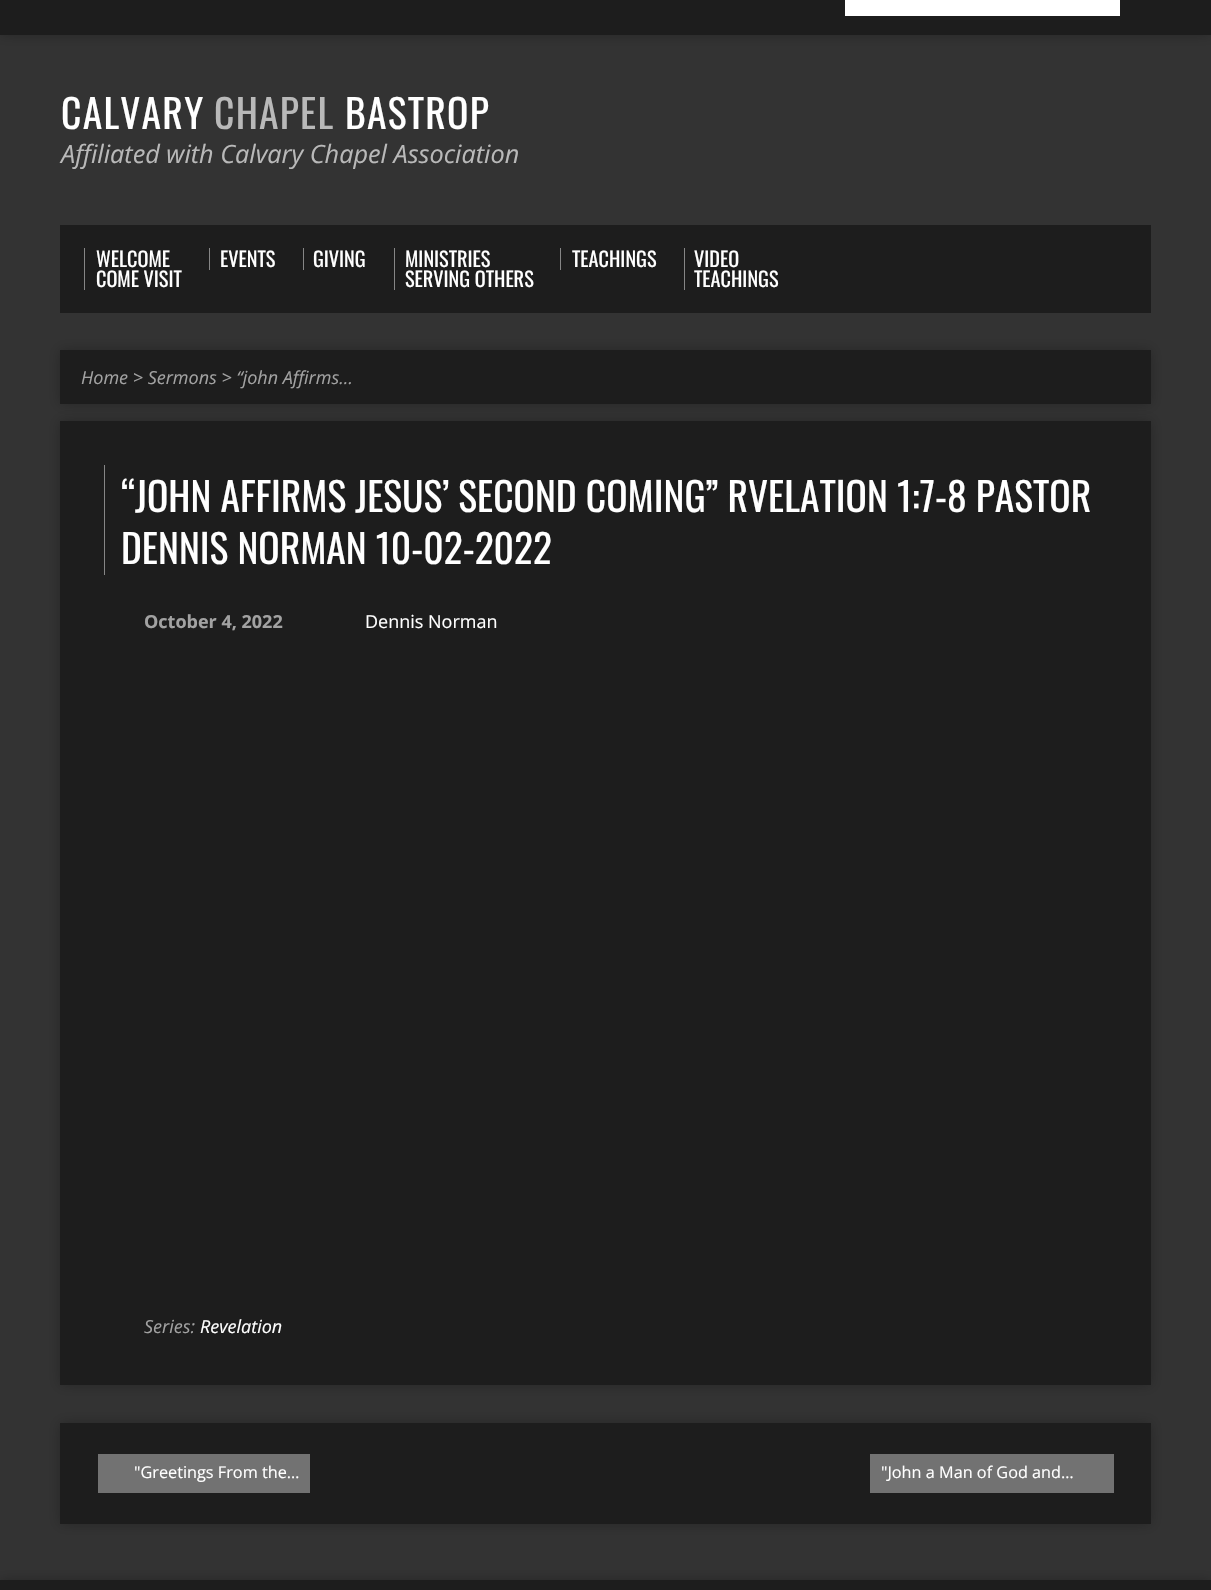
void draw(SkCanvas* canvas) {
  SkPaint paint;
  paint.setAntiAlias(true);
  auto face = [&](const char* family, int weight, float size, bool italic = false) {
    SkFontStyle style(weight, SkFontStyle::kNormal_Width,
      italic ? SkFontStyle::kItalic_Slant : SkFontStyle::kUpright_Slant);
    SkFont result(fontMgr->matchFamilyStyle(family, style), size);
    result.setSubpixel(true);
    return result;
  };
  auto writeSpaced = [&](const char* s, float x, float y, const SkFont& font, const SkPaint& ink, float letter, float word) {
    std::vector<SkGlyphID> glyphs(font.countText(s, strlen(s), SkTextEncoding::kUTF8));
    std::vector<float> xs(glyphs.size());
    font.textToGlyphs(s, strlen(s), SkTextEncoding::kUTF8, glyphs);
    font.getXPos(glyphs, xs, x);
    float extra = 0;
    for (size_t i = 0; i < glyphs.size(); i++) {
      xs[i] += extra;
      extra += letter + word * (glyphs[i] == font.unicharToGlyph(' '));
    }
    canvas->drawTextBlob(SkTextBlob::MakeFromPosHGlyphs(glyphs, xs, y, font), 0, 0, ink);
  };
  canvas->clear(0xff333333);
  paint.setColor(0x40000000);
  paint.setMaskFilter(SkMaskFilter::MakeBlur(kNormal_SkBlurStyle, 6));
  canvas->drawRect(SkRect::MakeXYWH(0, -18, 1211, 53), paint);
  paint.setMaskFilter(nullptr);
  {
    const struct { float x, y, w, h; SkColor color; } items[] = {
      {0, 0, 1211, 35, 0xff1d1d1d},
      {845, 0, 275, 16, 0xffffffff},
      {60, 225, 1091, 88, 0xf01c1c1c},
      {84, 248, 1, 42, 0xff868686},
      {209, 248, 1, 22, 0xff868686},
      {303, 248, 1, 22, 0xff868686},
      {394, 248, 1, 42, 0xff868686},
      {560, 248, 1, 22, 0xff868686},
      {684, 248, 1, 42, 0xff868686},
    };
    for (auto [x, y, w, h, color] : items) {
      paint.setColor(color);
      canvas->drawRect(SkRect::MakeXYWH(x, y, w, h), paint);
    }
  }
  paint.setColor(0x40000000);
  paint.setMaskFilter(SkMaskFilter::MakeBlur(kNormal_SkBlurStyle, 6));
  canvas->drawRect(SkRect::MakeXYWH(60, 350, 1091, 54), paint);
  paint.setMaskFilter(nullptr);
  paint.setColor(0xff1d1d1d);
  canvas->drawRect(SkRect::MakeXYWH(60, 350, 1091, 54), paint);
  paint.setColor(0x40000000);
  paint.setMaskFilter(SkMaskFilter::MakeBlur(kNormal_SkBlurStyle, 6));
  canvas->drawRect(SkRect::MakeXYWH(60, 421, 1091, 964), paint);
  paint.setMaskFilter(nullptr);
  paint.setColor(0xff1d1d1d);
  canvas->drawRect(SkRect::MakeXYWH(60, 421, 1091, 964), paint);
  paint.setColor(0xff868686);
  canvas->drawRect(SkRect::MakeXYWH(104, 465, 1, 110), paint);
  paint.setColor(0x40000000);
  paint.setMaskFilter(SkMaskFilter::MakeBlur(kNormal_SkBlurStyle, 6));
  canvas->drawRect(SkRect::MakeXYWH(60, 1423, 1091, 101), paint);
  paint.setMaskFilter(nullptr);
  {
    const struct { float x, y, w, h; SkColor color; } items[] = {
      {60, 1423, 1091, 101, 0xff1d1d1d},
      {98, 1454, 212, 39, 0xff727272},
      {870, 1454, 244, 39, 0xff727272},
    };
    for (auto [x, y, w, h, color] : items) {
      paint.setColor(color);
      canvas->drawRect(SkRect::MakeXYWH(x, y, w, h), paint);
    }
  }
  paint.setColor(0x40000000);
  paint.setMaskFilter(SkMaskFilter::MakeBlur(kNormal_SkBlurStyle, 6));
  canvas->drawRect(SkRect::MakeXYWH(0, 1580, 1211, 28), paint);
  paint.setMaskFilter(nullptr);
  paint.setColor(0xff1d1d1d);
  canvas->drawRect(SkRect::MakeXYWH(0, 1580, 1211, 10), paint);
  auto f0 = face("Oswald", 400, 39.6f);
  paint.setColor(0xffffffff);
  writeSpaced("CALVARY", 61, 129, f0, paint, 1.25f, 0);
  paint.setColor(0xffb9b9b9);
  writeSpaced("CHAPEL", 214, 129, f0, paint, 1.25f, 0);
  paint.setColor(0xffffffff);
  writeSpaced("BASTROP", 345, 129, f0, paint, 1.25f, 0);
  auto f1 = face("Open Sans", 400, 25.25f, true);
  paint.setColor(0xffb9b9b9);
  canvas->drawString("Affiliated with Calvary Chapel Association", 61, 163, f1, paint);
  auto f2 = face("Oswald", 400, 20.25f);
  paint.setColor(0xffffffff);
  {
    const struct { const char* s; float x, y; } items[] = {
      {"WELCOME", 96, 267},
      {"COME VISIT", 96, 287},
      {"EVENTS", 220, 267},
      {"GIVING", 313, 267},
      {"MINISTRIES", 405, 267},
      {"SERVING OTHERS", 405, 287},
      {"TEACHINGS", 572, 267},
      {"VIDEO", 694, 267},
      {"TEACHINGS", 694, 287},
    };
    for (auto [s, x, y] : items) {
      canvas->drawString(s, x, y, f2, paint);
    }
  }
  auto f3 = face("Open Sans", 400, 18, true);
  paint.setColor(0xffa2a2a2);
  canvas->drawString("Home > Sermons > “john Affirms…", 81, 384, f3, paint);
  paint.setColor(0xffffffff);
  canvas->drawString("“JOHN AFFIRMS JESUS’ SECOND COMING” RVELATION 1:7-8 PASTOR", 121, 512, f0, paint);
  canvas->drawString("DENNIS NORMAN 10-02-2022", 121, 564, f0, paint);
  auto f4 = face("Open Sans", 700, 18);
  paint.setColor(0xffa2a2a2);
  canvas->drawString("October 4, 2022", 144, 628, f4, paint);
  auto f5 = face("Open Sans", 400, 18);
  paint.setColor(0xffffffff);
  canvas->drawString("Dennis Norman", 365, 628, f5, paint);
  paint.setColor(0xffa2a2a2);
  canvas->drawString("Series:", 144, 1333, f3, paint);
  paint.setColor(0xffffffff);
  canvas->drawString("Revelation", 200, 1333, f3, paint);
  auto f6 = face("Open Sans", 400, 16.25f);
  canvas->drawString("\"Greetings From the…", 134, 1478, f6, paint);
  canvas->drawString("\"John a Man of God and…", 881, 1478, f6, paint);
}
